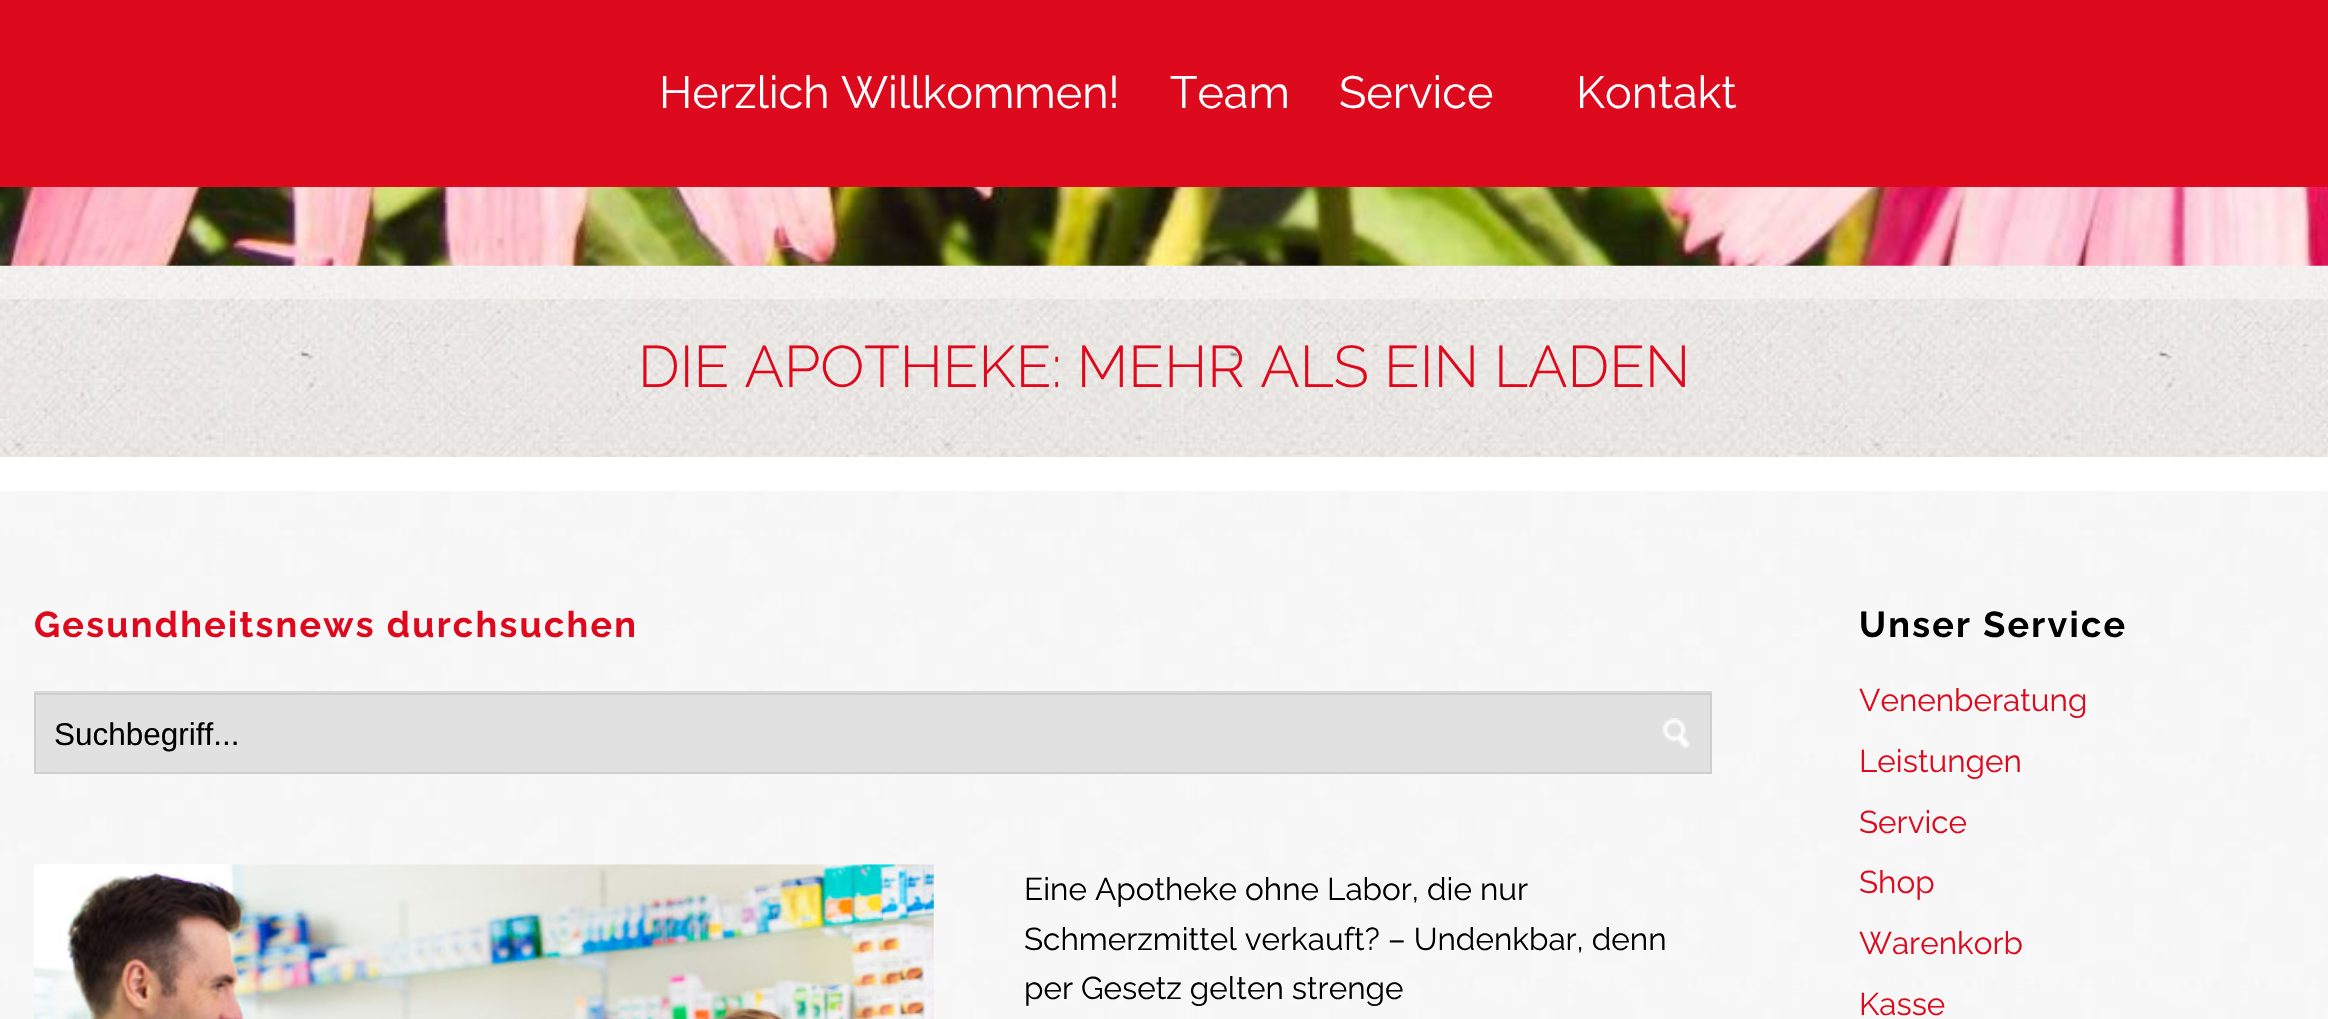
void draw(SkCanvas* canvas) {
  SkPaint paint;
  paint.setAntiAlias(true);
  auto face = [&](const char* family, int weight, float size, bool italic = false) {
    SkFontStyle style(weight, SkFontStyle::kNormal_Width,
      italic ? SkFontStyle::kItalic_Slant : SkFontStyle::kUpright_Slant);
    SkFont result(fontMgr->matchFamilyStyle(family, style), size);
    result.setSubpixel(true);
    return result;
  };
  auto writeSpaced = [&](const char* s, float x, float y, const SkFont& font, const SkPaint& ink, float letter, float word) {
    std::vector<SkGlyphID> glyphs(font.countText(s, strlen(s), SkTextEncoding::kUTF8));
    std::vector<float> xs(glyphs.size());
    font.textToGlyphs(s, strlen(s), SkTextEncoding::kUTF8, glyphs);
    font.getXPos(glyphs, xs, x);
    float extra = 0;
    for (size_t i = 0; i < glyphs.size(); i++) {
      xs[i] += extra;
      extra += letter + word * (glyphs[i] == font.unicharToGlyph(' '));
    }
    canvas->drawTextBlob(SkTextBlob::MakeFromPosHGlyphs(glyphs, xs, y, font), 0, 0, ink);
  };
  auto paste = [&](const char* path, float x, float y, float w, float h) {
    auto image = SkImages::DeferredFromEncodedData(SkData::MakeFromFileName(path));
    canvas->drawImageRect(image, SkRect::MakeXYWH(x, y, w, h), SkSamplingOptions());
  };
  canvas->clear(0xffffffff);
  paste("img/1.png", 0, 265, 2328, 754);
  paint.setColor(0xffdd091d);
  canvas->drawRect(SkRect::MakeXYWH(0, 0, 2328, 187), paint);
  paste("img/3.png", 0, 265, 2328, 192);
  paste("img/2.png", 0, 187, 2328, 79);
  {
    const struct { float x, y, w, h; SkColor color; } items[] = {
      {0, 266, 2328, 33, 0x66ffffff},
      {0, 457, 2328, 34, 0xffffffff},
      {34, 691, 1678, 2, 0xffdadada},
    };
    for (auto [x, y, w, h, color] : items) {
      paint.setColor(color);
      canvas->drawRect(SkRect::MakeXYWH(x, y, w, h), paint);
    }
  }
  paint.setColor(0xffe1e1e1);
  canvas->drawRect(SkRect::MakeXYWH(35, 694, 1676, 79), paint);
  paint.setStroke(true);
  paint.setStrokeWidth(2);
  paint.setColor(0xffcfcfcf);
  canvas->drawRect(SkRect::MakeXYWH(35, 694, 1676, 79), paint);
  paste("img/4.png", 1662, 718, 28, 31);
  paste("img/5.png", 34, 864, 900, 155);
  auto f0 = face("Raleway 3", 100, 45);
  paint.setStroke(false);
  paint.setColor(0xffffffff);
  {
    const struct { const char* s; float x, y; } items[] = {
      {"Herzlich Willkommen!", 659, 108},
      {"Team", 1170, 108},
      {"Service", 1339, 108},
      {"Kontakt", 1576, 108},
    };
    for (auto [s, x, y] : items) {
      canvas->drawString(s, x, y, f0, paint);
    }
  }
  auto f1 = face("Raleway", 100, 58.5f);
  paint.setColor(0xffdf091d);
  canvas->drawString("DIE APOTHEKE: MEHR ALS EIN LADEN", 638, 387, f1, paint);
  auto f2 = face("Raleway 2", 100, 36);
  writeSpaced("Gesundheitsnews durchsuchen", 34, 637, f2, paint, 2.25f, 0);
  auto f3 = face("Liberation Sans", 400, 31.5f);
  paint.setColor(0xff000000);
  canvas->drawString("Suchbegriff...", 54, 745, f3, paint);
  auto f4 = face("Raleway 3", 100, 31.5f);
  {
    const struct { const char* s; float x, y; } items[] = {
      {"Eine Apotheke ohne Labor, die nur", 1024, 900},
      {"Schmerzmittel verkauft? – Undenkbar, denn", 1024, 950},
      {"per Gesetz gelten strenge", 1024, 999},
    };
    for (auto [s, x, y] : items) {
      canvas->drawString(s, x, y, f4, paint);
    }
  }
  writeSpaced("Unser Service", 1859, 637, f2, paint, 2.25f, 0);
  paint.setColor(0xffdf091d);
  {
    const struct { const char* s; float x, y; } items[] = {
      {"Venenberatung", 1859, 711},
      {"Leistungen", 1859, 772},
      {"Service", 1859, 833},
      {"Shop", 1859, 893},
      {"Warenkorb", 1859, 954},
      {"Kasse", 1859, 1015},
    };
    for (auto [s, x, y] : items) {
      canvas->drawString(s, x, y, f4, paint);
    }
  }
}
